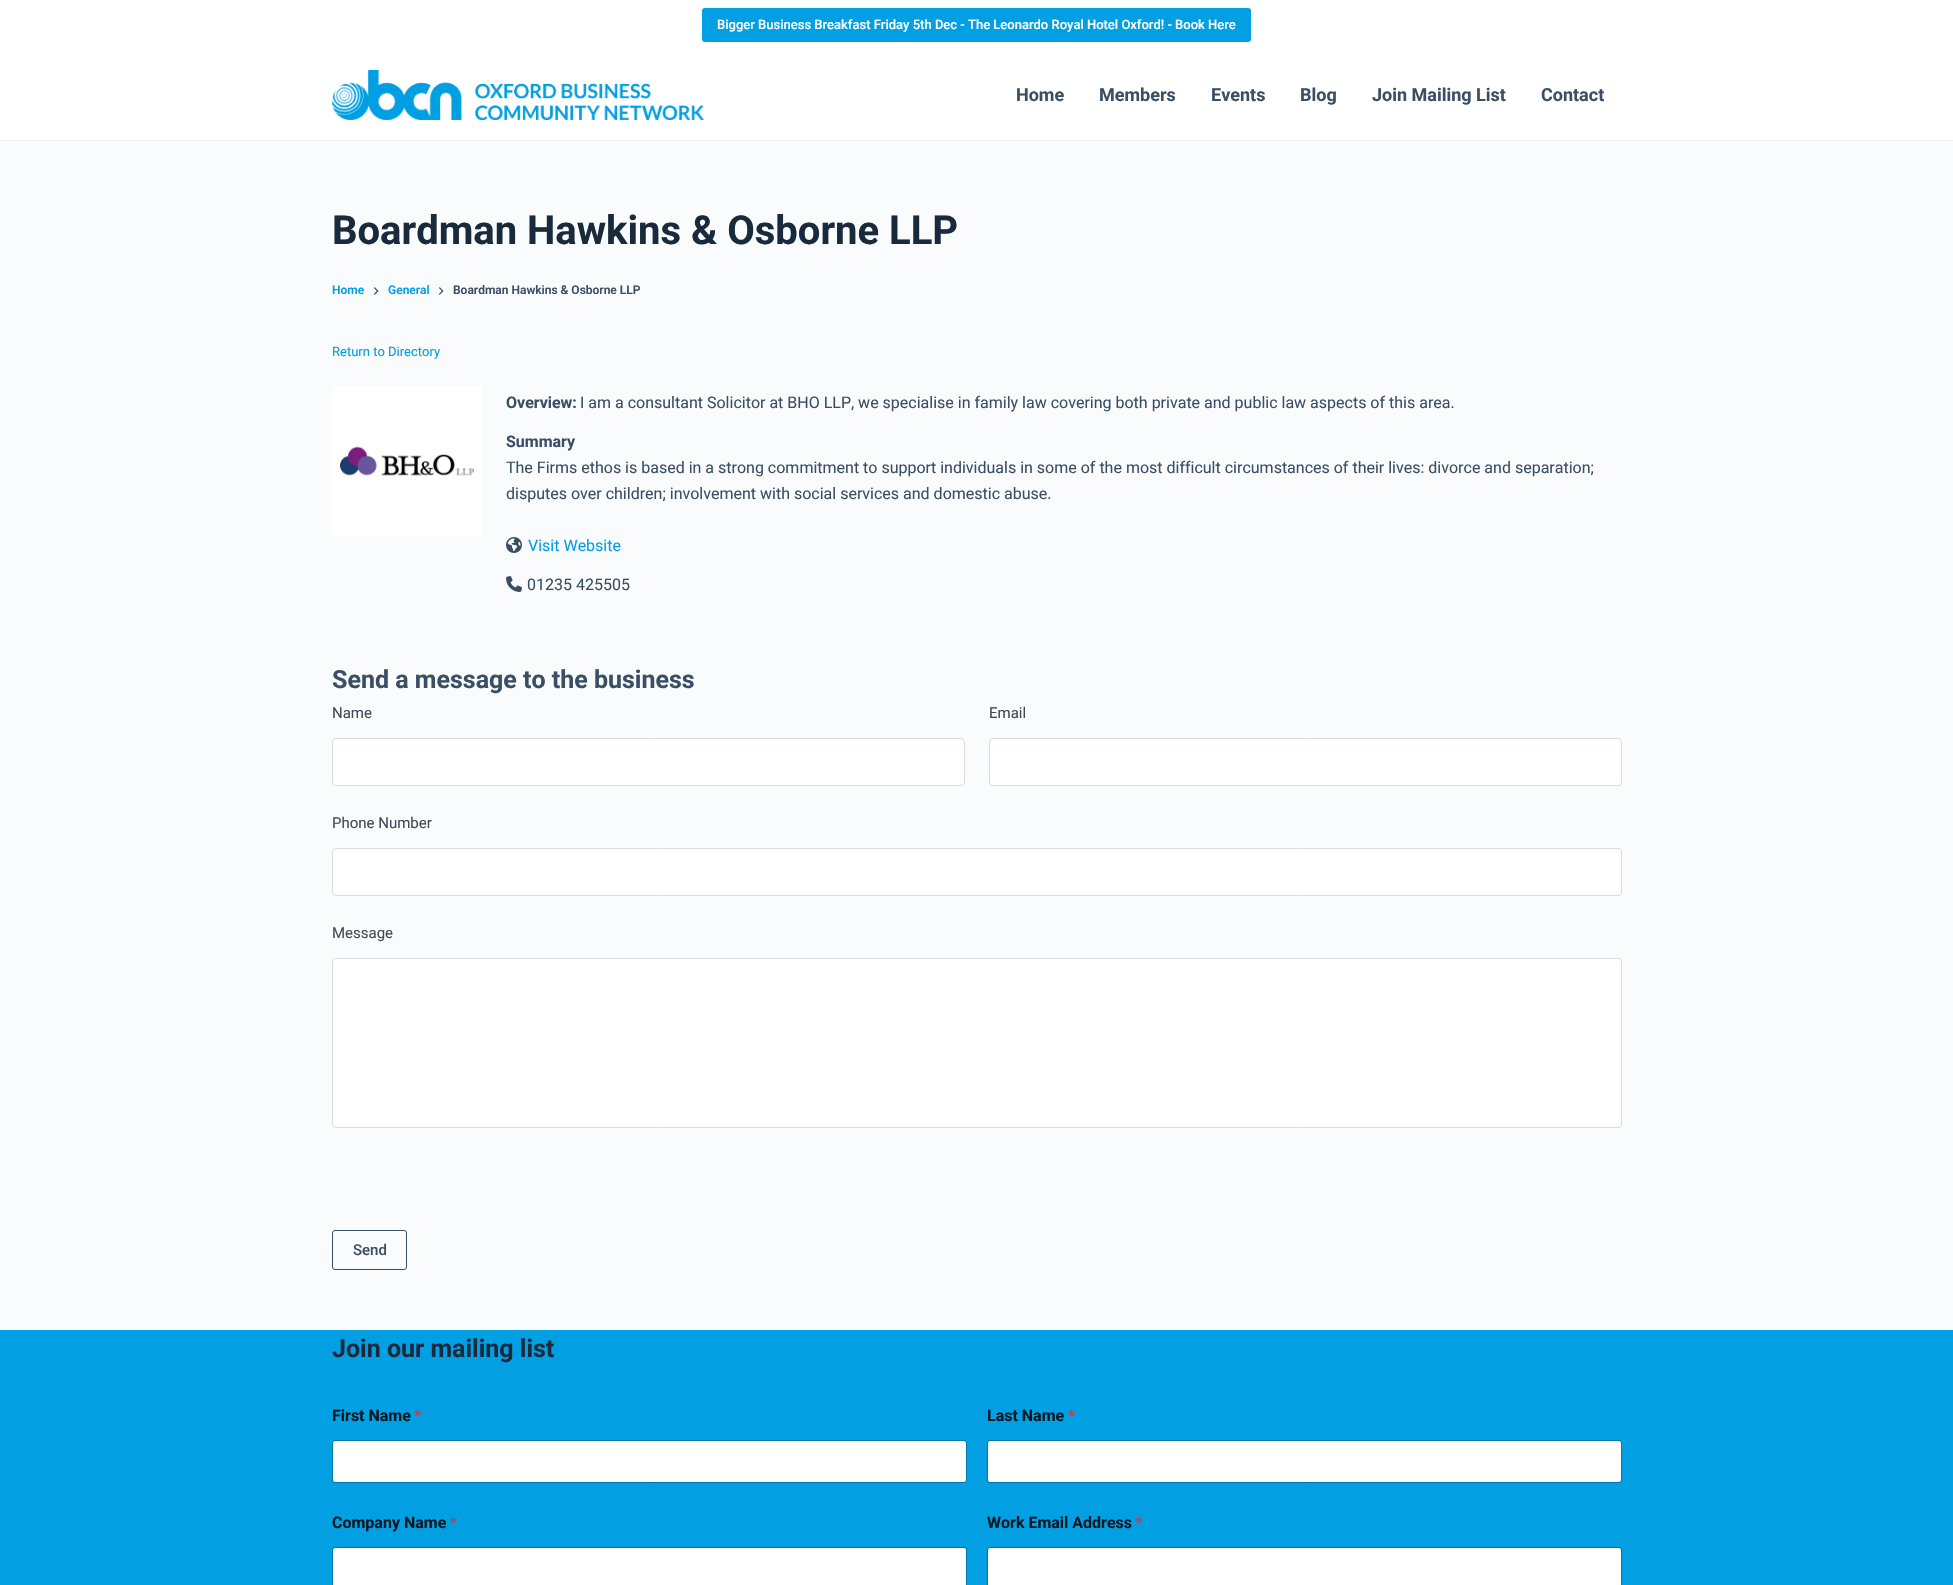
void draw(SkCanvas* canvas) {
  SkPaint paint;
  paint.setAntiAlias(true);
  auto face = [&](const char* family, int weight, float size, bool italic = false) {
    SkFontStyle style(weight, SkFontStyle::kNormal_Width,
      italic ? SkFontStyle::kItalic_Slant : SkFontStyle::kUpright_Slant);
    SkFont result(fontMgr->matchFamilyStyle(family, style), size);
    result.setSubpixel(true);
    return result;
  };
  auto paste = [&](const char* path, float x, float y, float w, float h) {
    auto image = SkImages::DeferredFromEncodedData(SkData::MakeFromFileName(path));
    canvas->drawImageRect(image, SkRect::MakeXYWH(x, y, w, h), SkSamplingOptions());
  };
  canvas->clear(0xfffafbfc);
  paint.setColor(0xffffffff);
  canvas->drawRect(SkRect::MakeXYWH(0, 0, 1953, 140), paint);
  paint.setColor(0xff039fe3);
  canvas->drawRoundRect(SkRect::MakeXYWH(702, 8, 549, 34), 3, 3, paint);
  paint.setColor(0xfff0f1f3);
  canvas->drawRect(SkRect::MakeXYWH(0, 140, 1953, 1), paint);
  paste("img/1.png", 332, 70, 372, 50);
  paste("img/2.png", 374, 287, 5, 8);
  paste("img/2.png", 439, 287, 5, 8);
  paste("img/3.png", 332, 386, 150, 150);
  paste("img/4.png", 506, 537, 16, 16);
  paste("img/5.png", 506, 576, 16, 16);
  paint.setColor(0xffffffff);
  canvas->drawRoundRect(SkRect::MakeXYWH(332.5f, 738.5f, 632, 47), 3.5f, 3.5f, paint);
  paint.setStroke(true);
  paint.setStrokeWidth(1);
  paint.setColor(0xffd9dbde);
  canvas->drawRoundRect(SkRect::MakeXYWH(332.5f, 738.5f, 632, 47), 3.5f, 3.5f, paint);
  paint.setStroke(false);
  paint.setColor(0xffffffff);
  canvas->drawRoundRect(SkRect::MakeXYWH(989.5f, 738.5f, 632, 47), 3.5f, 3.5f, paint);
  paint.setStroke(true);
  paint.setColor(0xffd9dbde);
  canvas->drawRoundRect(SkRect::MakeXYWH(989.5f, 738.5f, 632, 47), 3.5f, 3.5f, paint);
  paint.setStroke(false);
  paint.setColor(0xffffffff);
  canvas->drawRoundRect(SkRect::MakeXYWH(332.5f, 848.5f, 1289, 47), 3.5f, 3.5f, paint);
  paint.setStroke(true);
  paint.setColor(0xffd9dbde);
  canvas->drawRoundRect(SkRect::MakeXYWH(332.5f, 848.5f, 1289, 47), 3.5f, 3.5f, paint);
  paint.setStroke(false);
  paint.setColor(0xffffffff);
  canvas->drawRoundRect(SkRect::MakeXYWH(332.5f, 958.5f, 1289, 169), 3.5f, 3.5f, paint);
  paint.setStroke(true);
  paint.setColor(0xffd9dbde);
  canvas->drawRoundRect(SkRect::MakeXYWH(332.5f, 958.5f, 1289, 169), 3.5f, 3.5f, paint);
  paint.setColor(0xff3a4f66);
  canvas->drawRoundRect(SkRect::MakeXYWH(332.5f, 1230.5f, 74, 39), 2.5f, 2.5f, paint);
  paint.setStroke(false);
  paint.setColor(0xff039fe3);
  canvas->drawRect(SkRect::MakeXYWH(0, 1330, 1953, 255), paint);
  paint.setColor(0xffffffff);
  canvas->drawRoundRect(SkRect::MakeXYWH(333, 1441, 633, 41), 2, 2, paint);
  paint.setStroke(true);
  paint.setColor(0x40000000);
  canvas->drawRoundRect(SkRect::MakeXYWH(332.5f, 1440.5f, 634, 42), 2.5f, 2.5f, paint);
  paint.setStroke(false);
  paint.setColor(0xffffffff);
  canvas->drawRoundRect(SkRect::MakeXYWH(988, 1441, 633, 41), 2, 2, paint);
  paint.setStroke(true);
  paint.setColor(0x40000000);
  canvas->drawRoundRect(SkRect::MakeXYWH(987.5f, 1440.5f, 634, 42), 2.5f, 2.5f, paint);
  paint.setStroke(false);
  paint.setColor(0xffffffff);
  canvas->drawRoundRect(SkRect::MakeXYWH(333, 1548, 633, 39), 2, 2, paint);
  paint.setStroke(true);
  paint.setColor(0x40000000);
  canvas->drawRoundRect(SkRect::MakeXYWH(332.5f, 1547.5f, 634, 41), 2.5f, 2.5f, paint);
  paint.setStroke(false);
  paint.setColor(0xffffffff);
  canvas->drawRoundRect(SkRect::MakeXYWH(988, 1548, 633, 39), 2, 2, paint);
  paint.setStroke(true);
  paint.setColor(0x40000000);
  canvas->drawRoundRect(SkRect::MakeXYWH(987.5f, 1547.5f, 634, 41), 2.5f, 2.5f, paint);
  auto f0 = face("Roboto", 500, 13);
  paint.setStroke(false);
  paint.setColor(0xffffffff);
  canvas->drawString("Bigger Business Breakfast Friday 5th Dec - The Leonardo Royal Hotel Oxford! - Book Here", 717, 29, f0, paint);
  auto f1 = face("Roboto", 700, 18);
  paint.setColor(0xff3a4f66);
  {
    const struct { const char* s; float x, y; } items[] = {
      {"Home", 1016, 101},
      {"Members", 1099, 101},
      {"Events", 1211, 101},
      {"Blog", 1300, 101},
      {"Join Mailing List", 1372, 101},
      {"Contact", 1541, 101},
    };
    for (auto [s, x, y] : items) {
      canvas->drawString(s, x, y, f1, paint);
    }
  }
  auto f2 = face("Roboto", 700, 40);
  paint.setColor(0xff192a3d);
  canvas->drawString("Boardman Hawkins & Osborne LLP", 332, 244, f2, paint);
  auto f3 = face("Roboto", 600, 12);
  paint.setColor(0xff039fe3);
  canvas->drawString("Home", 332, 294, f3, paint);
  canvas->drawString("General", 388, 294, f3, paint);
  paint.setColor(0xff3a4f66);
  canvas->drawString("Boardman Hawkins & Osborne LLP", 453, 294, f3, paint);
  auto f4 = face("Roboto", 400, 13);
  paint.setColor(0xff039fe3);
  canvas->drawString("Return to Directory", 332, 356, f4, paint);
  auto f5 = face("Roboto", 700, 16);
  paint.setColor(0xff3a4f66);
  canvas->drawString("Overview:", 506, 408, f5, paint);
  auto f6 = face("Roboto", 400, 16);
  canvas->drawString("I am a consultant Solicitor at BHO LLP, we specialise in family law covering both private and public law aspects of this area.", 580, 408, f6, paint);
  canvas->drawString("Summary", 506, 447, f5, paint);
  canvas->drawString("The Firms ethos is based in a strong commitment to support individuals in some of the most difficult circumstances of their lives: divorce and separation;", 506, 473, f6, paint);
  canvas->drawString("disputes over children; involvement with social services and domestic abuse.", 506, 499, f6, paint);
  paint.setColor(0xff039fe3);
  canvas->drawString("Visit Website", 528, 551, f6, paint);
  paint.setColor(0xff3a4f66);
  canvas->drawString("01235 425505", 527, 590, f6, paint);
  auto f7 = face("Roboto", 700, 25);
  canvas->drawString("Send a message to the business", 332, 688, f7, paint);
  auto f8 = face("Roboto", 400, 15);
  paint.setColor(0xff3f4b5b);
  {
    const struct { const char* s; float x, y; } items[] = {
      {"Name", 332, 718},
      {"Email", 989, 718},
      {"Phone Number", 332, 828},
      {"Message", 332, 938},
    };
    for (auto [s, x, y] : items) {
      canvas->drawString(s, x, y, f8, paint);
    }
  }
  auto f9 = face("Roboto", 500, 15);
  paint.setColor(0xff3a4f66);
  canvas->drawString("Send", 353, 1255, f9, paint);
  paint.setColor(0xff192a3d);
  canvas->drawString("Join our mailing list", 332, 1357, f7, paint);
  paint.setColor(0xff001822);
  canvas->drawString("First Name", 332, 1421, f5, paint);
  paint.setColor(0xffd63637);
  canvas->drawString("*", 414, 1421, f6, paint);
  paint.setColor(0xff001822);
  canvas->drawString("Last Name", 987, 1421, f5, paint);
  paint.setColor(0xffd63637);
  canvas->drawString("*", 1068, 1421, f6, paint);
  paint.setColor(0xff001822);
  canvas->drawString("Company Name", 332, 1528, f5, paint);
  paint.setColor(0xffd63637);
  canvas->drawString("*", 450, 1528, f6, paint);
  paint.setColor(0xff001822);
  canvas->drawString("Work Email Address", 987, 1528, f5, paint);
  paint.setColor(0xffd63637);
  canvas->drawString("*", 1135, 1528, f6, paint);
}
